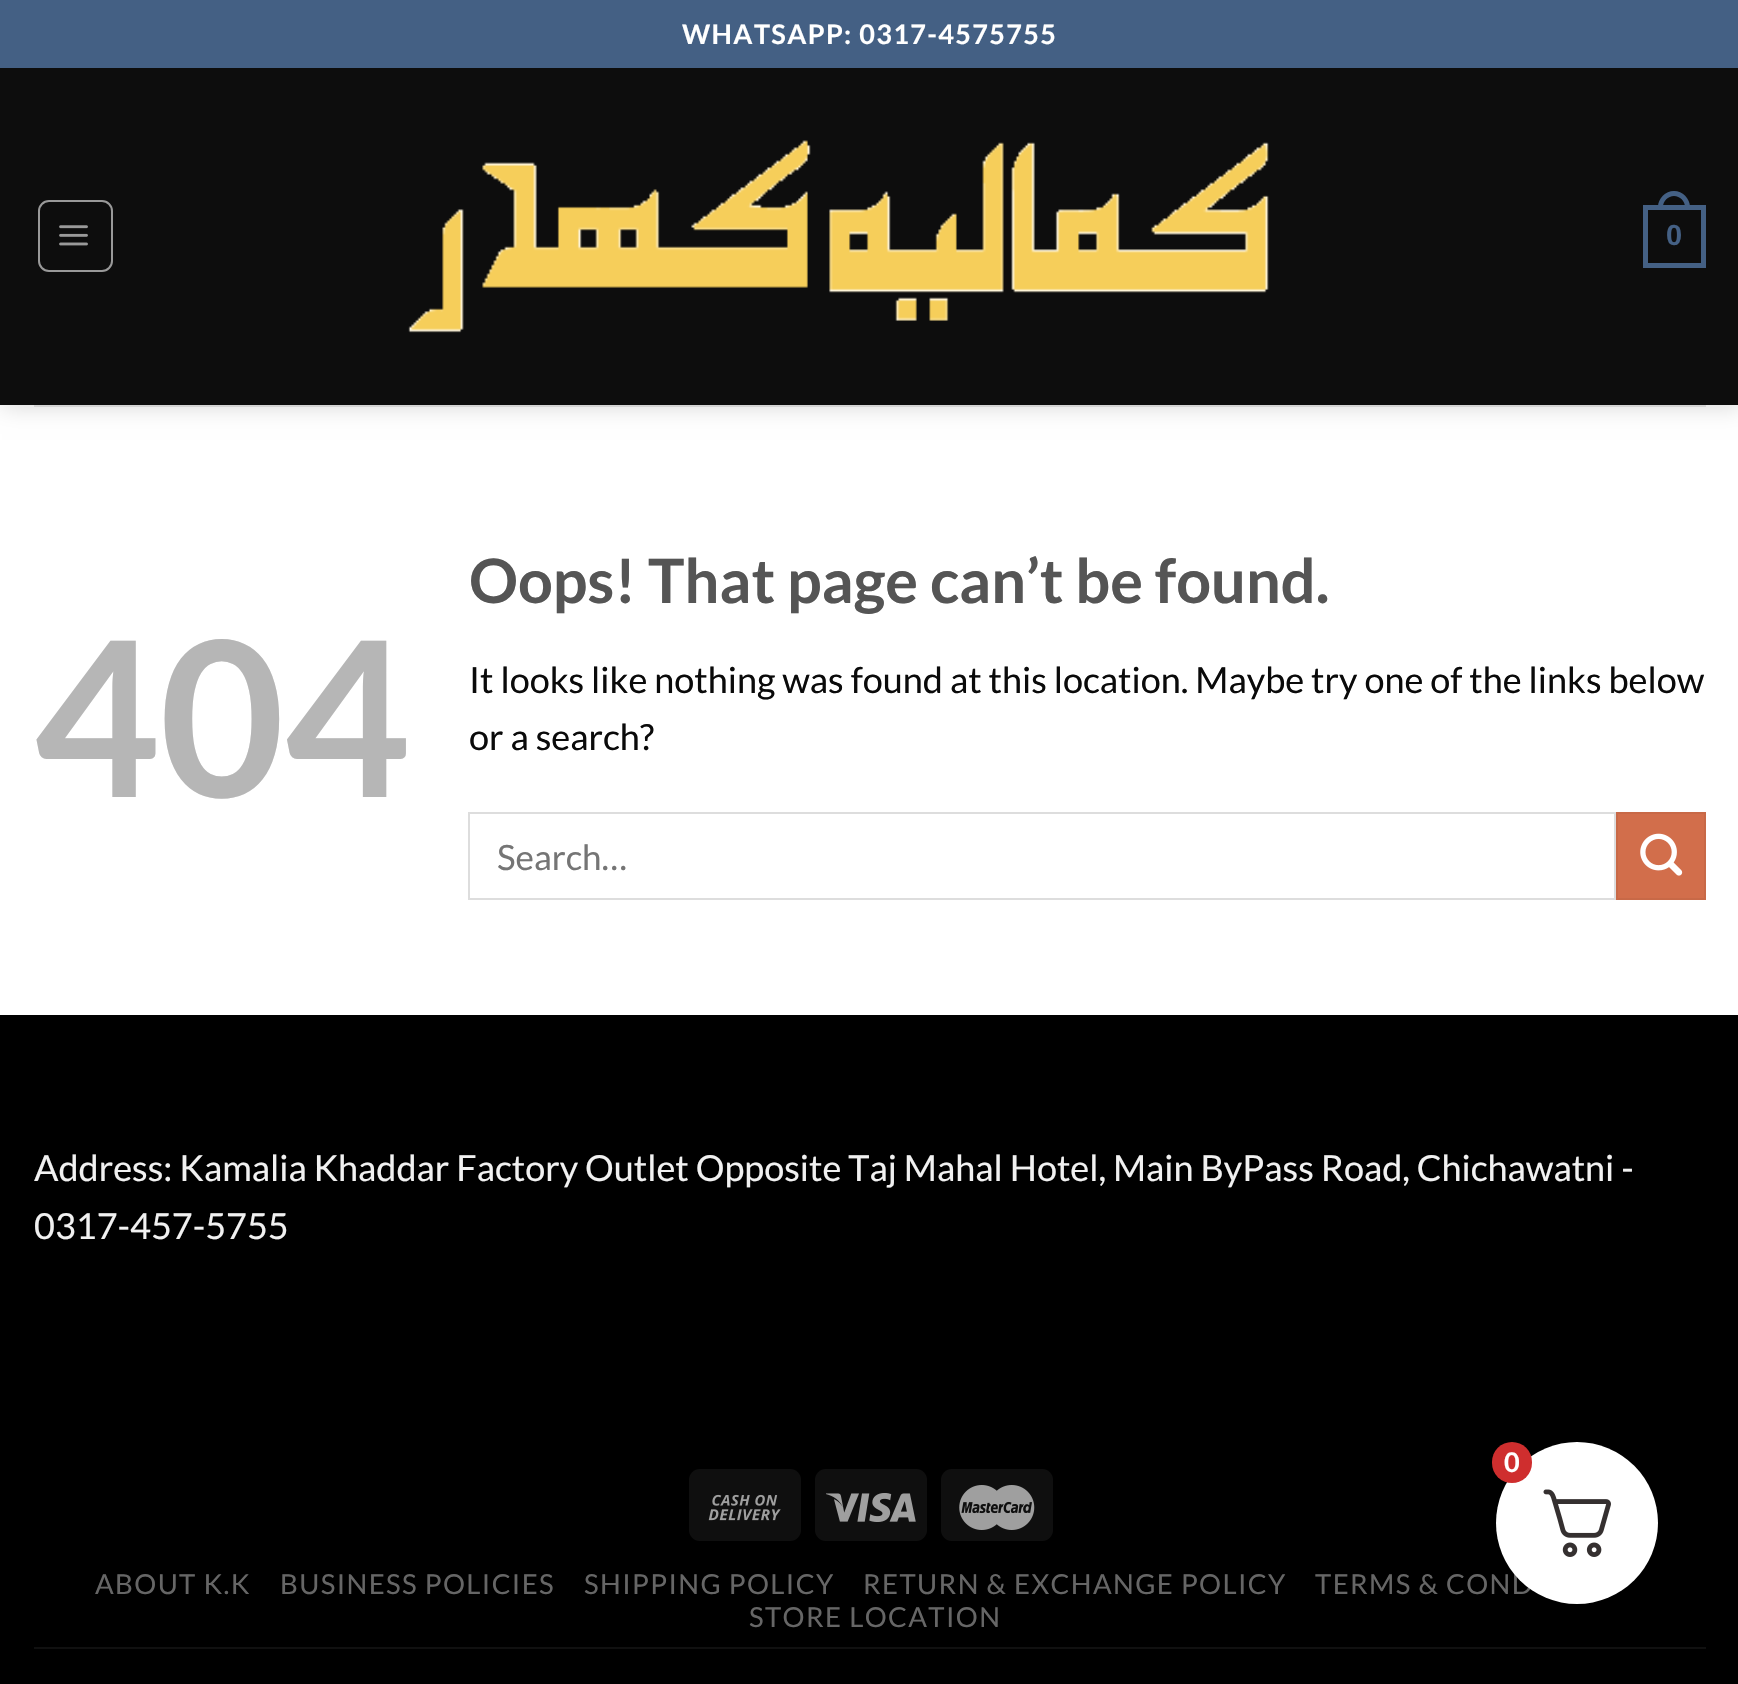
void draw(SkCanvas* canvas) {
  SkPaint paint;
  paint.setAntiAlias(true);
  auto face = [&](const char* family, int weight, float size, bool italic = false) {
    SkFontStyle style(weight, SkFontStyle::kNormal_Width,
      italic ? SkFontStyle::kItalic_Slant : SkFontStyle::kUpright_Slant);
    SkFont result(fontMgr->matchFamilyStyle(family, style), size);
    result.setSubpixel(true);
    return result;
  };
  auto writeSpaced = [&](const char* s, float x, float y, const SkFont& font, const SkPaint& ink, float letter, float word) {
    std::vector<SkGlyphID> glyphs(font.countText(s, strlen(s), SkTextEncoding::kUTF8));
    std::vector<float> xs(glyphs.size());
    font.textToGlyphs(s, strlen(s), SkTextEncoding::kUTF8, glyphs);
    font.getXPos(glyphs, xs, x);
    float extra = 0;
    for (size_t i = 0; i < glyphs.size(); i++) {
      xs[i] += extra;
      extra += letter + word * (glyphs[i] == font.unicharToGlyph(' '));
    }
    canvas->drawTextBlob(SkTextBlob::MakeFromPosHGlyphs(glyphs, xs, y, font), 0, 0, ink);
  };
  auto paste = [&](const char* path, float x, float y, float w, float h) {
    auto image = SkImages::DeferredFromEncodedData(SkData::MakeFromFileName(path));
    canvas->drawImageRect(image, SkRect::MakeXYWH(x, y, w, h), SkSamplingOptions());
  };
  auto shape = [&](const char* data, bool evenOdd = false) {
    SkPath result = *SkParsePath::FromSVGString(data);
    if (evenOdd) result.setFillType(SkPathFillType::kEvenOdd);
    return result;
  };
  canvas->clear(0xffffffff);
  paint.setColor(0x26000000);
  paint.setMaskFilter(SkMaskFilter::MakeBlur(kNormal_SkBlurStyle, 11));
  canvas->drawRect(SkRect::MakeXYWH(2, 2, 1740, 405), paint);
  paint.setMaskFilter(nullptr);
  paint.setColor(0xff446084);
  canvas->drawRect(SkRect::MakeXYWH(0, 0, 1738, 68), paint);
  paint.setColor(0xff0d0d0d);
  canvas->drawRect(SkRect::MakeXYWH(0, 68, 1738, 337), paint);
  paint.setStroke(true);
  paint.setStrokeWidth(2);
  paint.setColor(0xff999999);
  canvas->drawRoundRect(SkRect::MakeXYWH(39, 201, 73, 70), 10, 10, paint);
  paste("img/1.png", 59, 225, 29, 21);
  paste("img/2.png", 408, 140, 861, 193);
  paint.setStrokeWidth(5);
  paint.setColor(0xff446084);
  canvas->drawRect(SkRect::MakeXYWH(1645.5f, 207.5f, 58, 58), paint);
  paint.setStroke(false);
  canvas->drawPath(shape("M1674 191C1682.5 191 1690 198.5 1690 207V209H1658V207C1658 198.5 1665.5 191 1674 191ZM1674 196C1680 196 1685 201 1685 207V209H1663V207C1663 201 1668 196 1674 196Z", true), paint);
  paint.setColor(0xffd4d4d4);
  canvas->drawRect(SkRect::MakeXYWH(34, 405, 1672, 2), paint);
  paint.setStroke(true);
  paint.setStrokeWidth(2);
  paint.setColor(0xffdddddd);
  canvas->drawRect(SkRect::MakeXYWH(469, 813, 1146, 86), paint);
  paint.setStroke(false);
  paint.setColor(0xffd26e4b);
  canvas->drawRect(SkRect::MakeXYWH(1617, 813, 88, 86), paint);
  paint.setStroke(true);
  paint.setColor(0xffc86947);
  canvas->drawRect(SkRect::MakeXYWH(1617, 813, 88, 86), paint);
  paste("img/3.png", 1640, 833, 43, 43);
  paint.setStroke(false);
  paint.setColor(0xff000000);
  canvas->drawRect(SkRect::MakeXYWH(0, 1015, 1738, 669), paint);
  paint.setColor(0xff0f0f0f);
  canvas->drawRoundRect(SkRect::MakeXYWH(689, 1469, 112, 72), 11, 11, paint);
  paste("img/4.png", 708, 1494, 73, 27);
  canvas->drawRoundRect(SkRect::MakeXYWH(815, 1469, 112, 72), 11, 11, paint);
  paste("img/5.png", 826, 1493, 90, 29);
  canvas->drawRoundRect(SkRect::MakeXYWH(941, 1469, 112, 72), 11, 11, paint);
  paste("img/6.png", 959, 1485, 76, 45);
  paint.setColor(0xff101010);
  canvas->drawRect(SkRect::MakeXYWH(34, 1647, 1672, 2), paint);
  paint.setColor(0x40000000);
  paint.setMaskFilter(SkMaskFilter::MakeBlur(kNormal_SkBlurStyle, 9));
  canvas->drawRoundRect(SkRect::MakeXYWH(1496, 1447, 162, 162), 81, 81, paint);
  paint.setMaskFilter(nullptr);
  auto f0 = face("Lato", 700, 27);
  paint.setColor(0xffffffff);
  writeSpaced("WHATSAPP: 0317-4575755", 682, 44, f0, paint, 1.35f, 0);
  auto f1 = face("Liberation Sans", 700, 29);
  paint.setColor(0xff446084);
  canvas->drawString("0", 1666, 245, f1, paint);
  auto f2 = face("Lato", 700, 216);
  paint.setColor(0xffb6b6b6);
  canvas->drawString("404", 34, 797, f2, paint);
  auto f3 = face("Lato", 700, 61.25f);
  paint.setColor(0xff555555);
  canvas->drawString("Oops! That page can’t be found.", 469, 603, f3, paint);
  auto f4 = face("Lato", 400, 36);
  paint.setColor(0xff0a0a0a);
  canvas->drawString("It looks like nothing was found at this location. Maybe try one of the links below", 469, 693, f4, paint);
  canvas->drawString("or a search?", 469, 750, f4, paint);
  auto f5 = face("Lato", 400, 35);
  paint.setColor(0xff757575);
  canvas->drawString("Search…", 497, 870, f5, paint);
  paint.setColor(0xfff1f1f1);
  canvas->drawString("Address: Kamalia Khaddar Factory Outlet Opposite Taj Mahal Hotel, Main ByPass Road, Chichawatni -", 34, 1181, f4, paint);
  canvas->drawString("0317-457-5755", 34, 1239, f4, paint);
  auto f6 = face("Lato", 400, 27.5f);
  paint.setColor(0xff666666);
  {
    const struct { const char* s; float x, y; } items[] = {
      {"ABOUT K.K", 95, 1594},
      {"BUSINESS POLICIES", 280, 1594},
      {"SHIPPING POLICY", 584, 1594},
      {"RETURN & EXCHANGE POLICY", 863, 1594},
      {"TERMS & COND", 1315, 1594},
      {"STORE LOCATION", 749, 1627},
    };
    for (auto [s, x, y] : items) {
      writeSpaced(s, x, y, f6, paint, 1.4f, 0);
    }
  }
  paint.setColor(0xffffffff);
  canvas->drawCircle(1577, 1523, 81, paint);
  paste("img/7.png", 1543, 1489, 68, 68);
  paint.setColor(0xffcf2e2e);
  canvas->drawRoundRect(SkRect::MakeXYWH(1492, 1442, 40, 41), 20, 20, paint);
  paint.setColor(0xffffffff);
  canvas->drawString("0", 1504, 1472, f0, paint);
}
